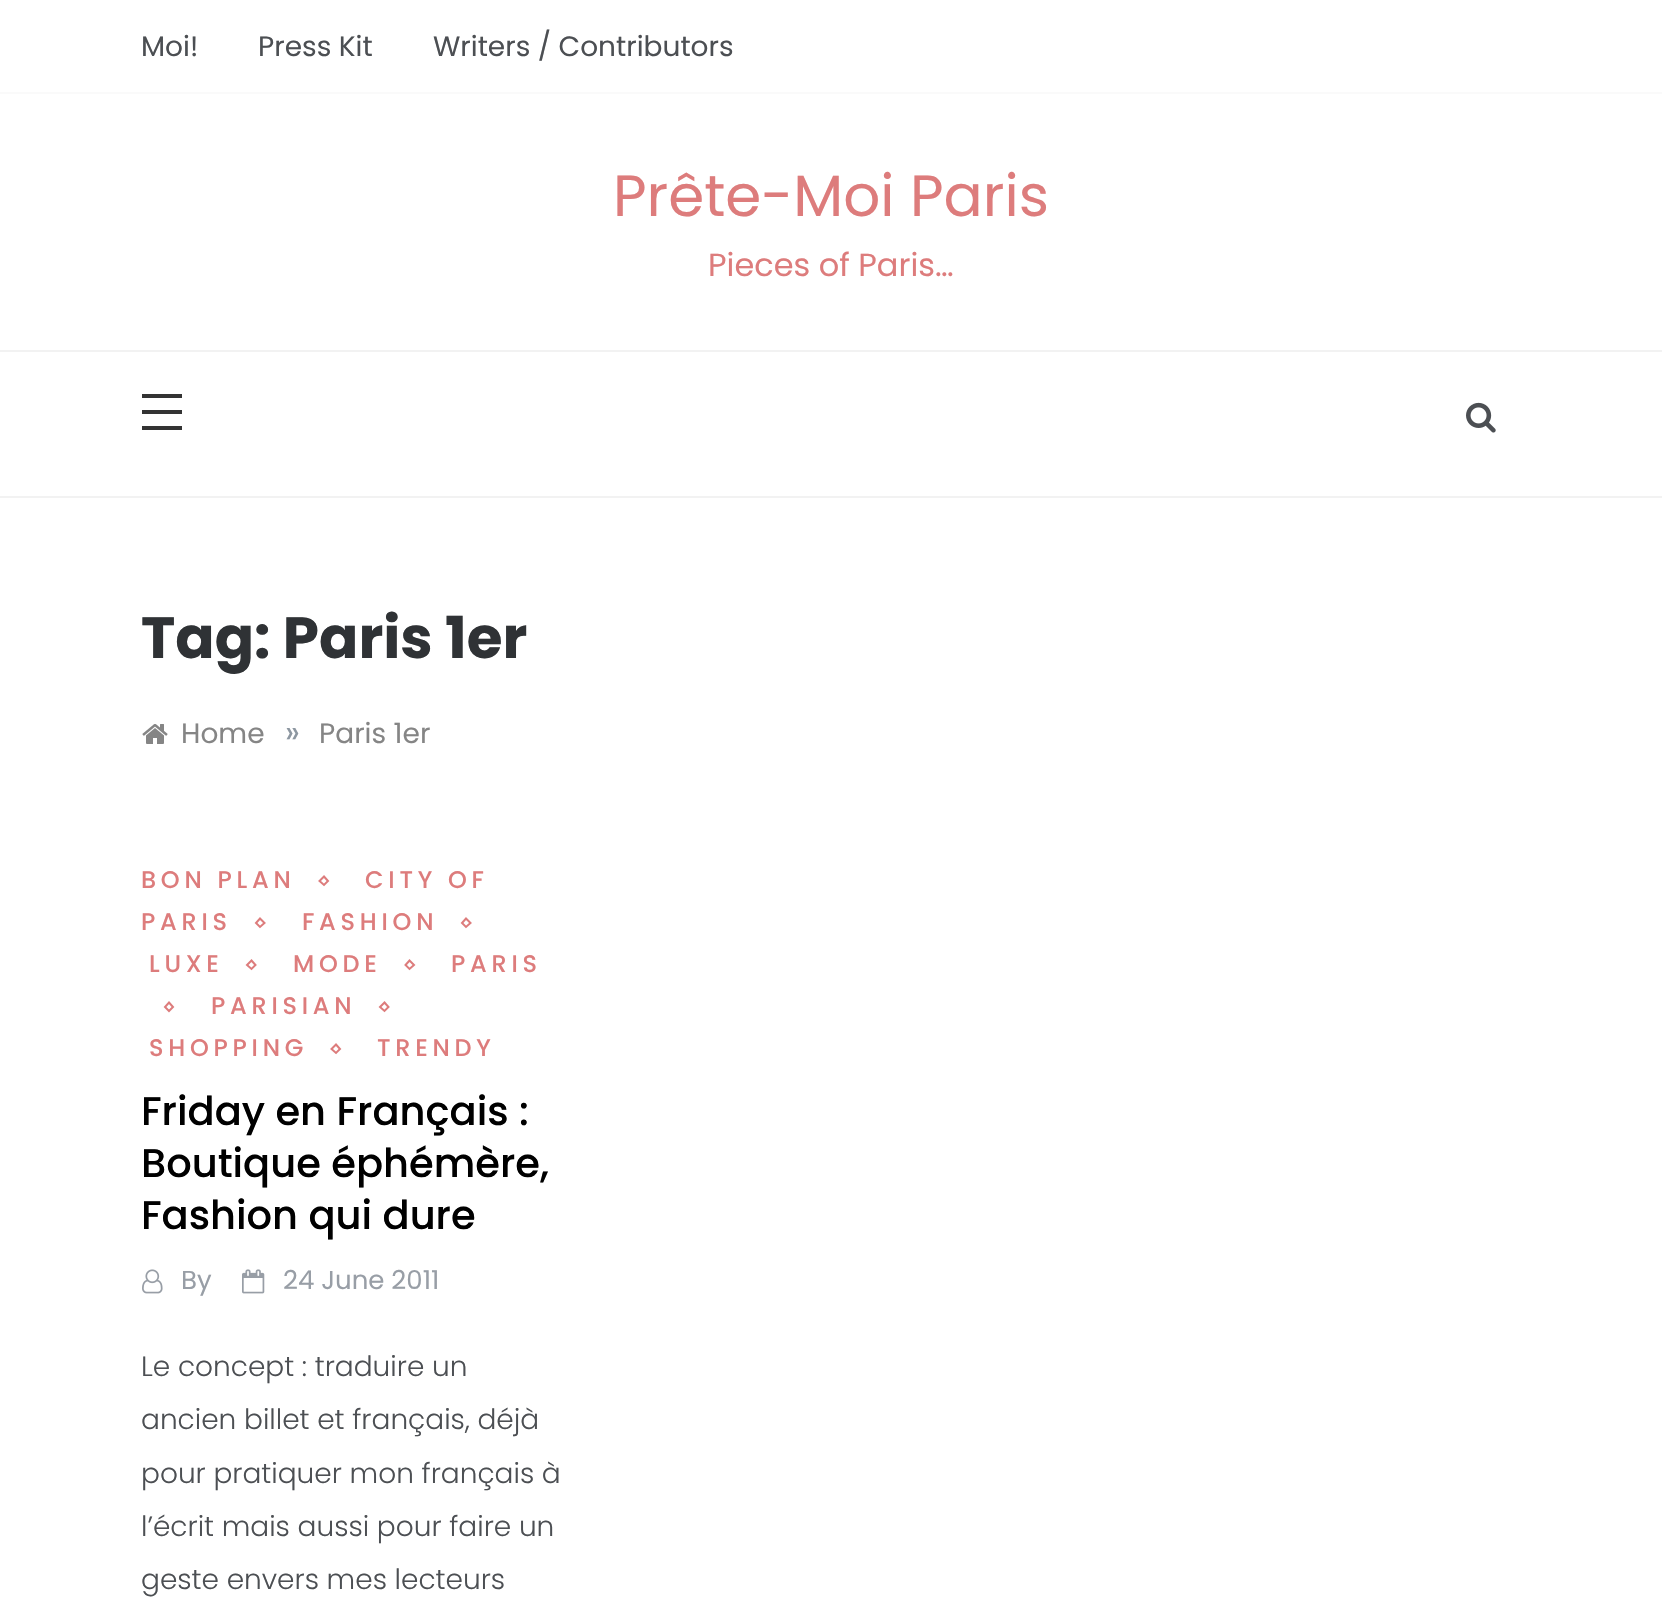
void draw(SkCanvas* canvas) {
  SkPaint paint;
  paint.setAntiAlias(true);
  auto face = [&](const char* family, int weight, float size, bool italic = false) {
    SkFontStyle style(weight, SkFontStyle::kNormal_Width,
      italic ? SkFontStyle::kItalic_Slant : SkFontStyle::kUpright_Slant);
    SkFont result(fontMgr->matchFamilyStyle(family, style), size);
    result.setSubpixel(true);
    return result;
  };
  auto writeSpaced = [&](const char* s, float x, float y, const SkFont& font, const SkPaint& ink, float letter, float word) {
    std::vector<SkGlyphID> glyphs(font.countText(s, strlen(s), SkTextEncoding::kUTF8));
    std::vector<float> xs(glyphs.size());
    font.textToGlyphs(s, strlen(s), SkTextEncoding::kUTF8, glyphs);
    font.getXPos(glyphs, xs, x);
    float extra = 0;
    for (size_t i = 0; i < glyphs.size(); i++) {
      xs[i] += extra;
      extra += letter + word * (glyphs[i] == font.unicharToGlyph(' '));
    }
    canvas->drawTextBlob(SkTextBlob::MakeFromPosHGlyphs(glyphs, xs, y, font), 0, 0, ink);
  };
  auto paste = [&](const char* path, float x, float y, float w, float h) {
    auto image = SkImages::DeferredFromEncodedData(SkData::MakeFromFileName(path));
    canvas->drawImageRect(image, SkRect::MakeXYWH(x, y, w, h), SkSamplingOptions());
  };
  auto shape = [&](const char* data, bool evenOdd = false) {
    SkPath result = *SkParsePath::FromSVGString(data);
    if (evenOdd) result.setFillType(SkPathFillType::kEvenOdd);
    return result;
  };
  canvas->clear(0xffffffff);
  {
    const struct { float x, y, w, h; SkColor color; } items[] = {
      {0, 92, 1662, 2, 0xfffafafa},
      {0, 496, 1662, 2, 0xfff2f2f2},
      {0, 350, 1662, 2, 0xfff2f2f2},
      {142, 394, 40, 4, 0xff333333},
      {142, 410, 40, 4, 0xff333333},
      {142, 426, 40, 4, 0xff333333},
    };
    for (auto [x, y, w, h, color] : items) {
      paint.setColor(color);
      canvas->drawRect(SkRect::MakeXYWH(x, y, w, h), paint);
    }
  }
  paste("img/1.png", 1466, 402, 30, 31);
  paste("img/2.png", 142, 724, 26, 20);
  paint.setStroke(true);
  paint.setStrokeWidth(2);
  paint.setColor(0xffdd7c7c);
  canvas->drawPath(shape("M324 876.5L328 881L324 885L319.5 881Z"), paint);
  canvas->drawPath(shape("M260 918.5L264.5 923L260 927L256 923Z"), paint);
  canvas->drawPath(shape("M466 918.5L470.5 923L466 927L462 923Z"), paint);
  canvas->drawPath(shape("M251.5 960.5L255.5 965L251.5 969L247 965Z"), paint);
  canvas->drawPath(shape("M409.5 960.5L414 965L409.5 969L405.5 965Z"), paint);
  canvas->drawPath(shape("M169 1002.5L173 1007L169 1011L165 1007Z"), paint);
  canvas->drawPath(shape("M384.5 1002.5L388.5 1007L384.5 1011L380 1007ZM336 1044.5L340 1049L336 1053L331.5 1049Z"), paint);
  paste("img/3.png", 142, 1269, 21, 25);
  paste("img/4.png", 242, 1269, 23, 25);
  auto f0 = face("Poppins", 400, 28);
  paint.setStroke(false);
  paint.setColor(0xff4c4f53);
  {
    const struct { const char* s; float x, y; } items[] = {
      {"Moi!", 141, 56},
      {"Press Kit", 258, 56},
      {"Writers / Contributors", 433, 56},
    };
    for (auto [s, x, y] : items) {
      canvas->drawString(s, x, y, f0, paint);
    }
  }
  auto f1 = face("Poppins", 400, 58);
  paint.setColor(0xffdd7c7c);
  canvas->drawString("Prête-Moi Paris", 613, 216, f1, paint);
  auto f2 = face("Poppins", 400, 32);
  canvas->drawString("Pieces of Paris…", 708, 276, f2, paint);
  auto f3 = face("Poppins", 700, 58);
  paint.setColor(0xff2f3235);
  canvas->drawString("Tag: Paris 1er", 141, 658, f3, paint);
  paint.setColor(0xff858585);
  canvas->drawString("Home", 181, 743, f0, paint);
  paint.setColor(0xff8d97a1);
  canvas->drawString("»", 285, 743, f2, paint);
  paint.setColor(0xff858585);
  canvas->drawString("Paris 1er", 319, 743, f0, paint);
  auto f4 = face("Poppins", 500, 24);
  paint.setColor(0xffdd7c7c);
  {
    const struct { const char* s; float x, y; } items[] = {
      {"BON PLAN", 141, 888},
      {"CITY OF", 365, 888},
      {"PARIS", 141, 930},
      {"FASHION", 302, 930},
      {"LUXE", 149, 972},
      {"MODE", 293, 972},
      {"PARIS", 451, 972},
      {"PARISIAN", 211, 1014},
      {"SHOPPING", 149, 1056},
      {"TRENDY", 377, 1056},
    };
    for (auto [s, x, y] : items) {
      writeSpaced(s, x, y, f4, paint, 4.75f, 0);
    }
  }
  auto f5 = face("Poppins", 500, 40);
  paint.setColor(0xff000000);
  {
    const struct { const char* s; float x, y; } items[] = {
      {"Friday en Français :", 141, 1125},
      {"Boutique éphémère,", 141, 1177},
      {"Fashion qui dure", 141, 1229},
    };
    for (auto [s, x, y] : items) {
      canvas->drawString(s, x, y, f5, paint);
    }
  }
  auto f6 = face("Poppins", 400, 26);
  paint.setColor(0xff989ea6);
  canvas->drawString("By", 181, 1289, f6, paint);
  canvas->drawString("24 June 2011", 283, 1289, f6, paint);
  auto f7 = face("Poppins", 300, 28);
  paint.setColor(0xff4c4f53);
  {
    const struct { const char* s; float x, y; } items[] = {
      {"Le concept : traduire un", 141, 1376},
      {"ancien billet et français, déjà", 141, 1429},
      {"pour pratiquer mon français à", 141, 1483},
      {"l’écrit mais aussi pour faire un", 141, 1536},
      {"geste envers mes lecteurs", 141, 1589},
    };
    for (auto [s, x, y] : items) {
      canvas->drawString(s, x, y, f7, paint);
    }
  }
}
